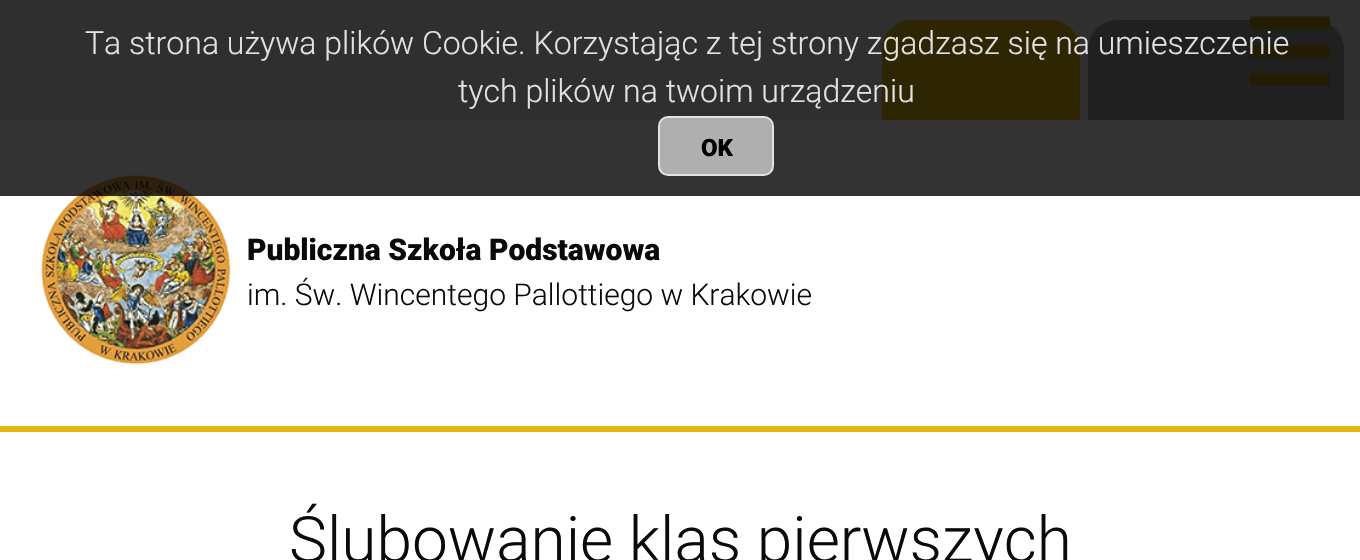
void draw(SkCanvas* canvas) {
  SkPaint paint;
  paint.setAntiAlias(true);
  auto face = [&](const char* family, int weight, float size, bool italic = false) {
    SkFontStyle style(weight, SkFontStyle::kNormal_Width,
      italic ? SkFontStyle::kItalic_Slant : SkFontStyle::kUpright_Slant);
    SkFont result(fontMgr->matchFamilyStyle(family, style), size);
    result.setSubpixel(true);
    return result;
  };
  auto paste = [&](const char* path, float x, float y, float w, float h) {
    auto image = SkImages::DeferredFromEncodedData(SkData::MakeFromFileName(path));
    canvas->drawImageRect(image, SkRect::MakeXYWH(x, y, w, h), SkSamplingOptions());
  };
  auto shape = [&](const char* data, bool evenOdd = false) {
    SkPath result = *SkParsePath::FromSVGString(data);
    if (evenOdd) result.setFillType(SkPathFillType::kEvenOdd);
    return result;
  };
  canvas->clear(0xffffffff);
  paint.setColor(0xffe8e8e8);
  canvas->drawRect(SkRect::MakeXYWH(0, 0, 1360, 120), paint);
  paint.setColor(0xffe2b60f);
  canvas->drawPath(shape("M912 20H1050C1066.5 20 1080 33.5 1080 50V120H882V50C882 33.5 895.5 20 912 20Z"), paint);
  paint.setColor(0xff9f9f9f);
  canvas->drawPath(shape("M1118 20H1314C1330.5 20 1344 33.5 1344 50V120H1088V50C1088 33.5 1101.5 20 1118 20Z"), paint);
  paste("img/1.png", 1250, 16, 80, 70);
  paste("img/2.png", 40, 172, 191, 196);
  paint.setColor(0xcc000000);
  canvas->drawRect(SkRect::MakeXYWH(0, 0, 1360, 196), paint);
  paint.setColor(0xb3e2e2e2);
  canvas->drawRoundRect(SkRect::MakeXYWH(659, 117, 114, 58), 9, 9, paint);
  paint.setStroke(true);
  paint.setStrokeWidth(2);
  paint.setColor(0xffe2e2e2);
  canvas->drawRoundRect(SkRect::MakeXYWH(659, 117, 114, 58), 9, 9, paint);
  paint.setStroke(false);
  paint.setColor(0xffe2b60f);
  canvas->drawRect(SkRect::MakeXYWH(0, 426, 1360, 6), paint);
  auto f0 = face("Roboto", 300, 32);
  paint.setColor(0xffe2e2e2);
  canvas->drawString("Ta strona używa plików Cookie. Korzystając z tej strony zgadzasz się na umieszczenie", 85, 54, f0, paint);
  canvas->drawString("tych plików na twoim urządzeniu", 458, 102, f0, paint);
  auto f1 = face("Roboto", 900, 24);
  paint.setColor(0xff000000);
  canvas->drawString("OK", 701, 156, f1, paint);
  auto f2 = face("Roboto", 900, 30);
  paint.setColor(0xff0a0a0a);
  canvas->drawString("Publiczna Szkoła Podstawowa", 247, 260, f2, paint);
  auto f3 = face("Roboto", 300, 30);
  canvas->drawString("im. Św. Wincentego Pallottiego w Krakowie", 247, 305, f3, paint);
  auto f4 = face("Roboto", 300, 64);
  canvas->drawString("Ślubowanie klas pierwszych", 289, 562, f4, paint);
}
